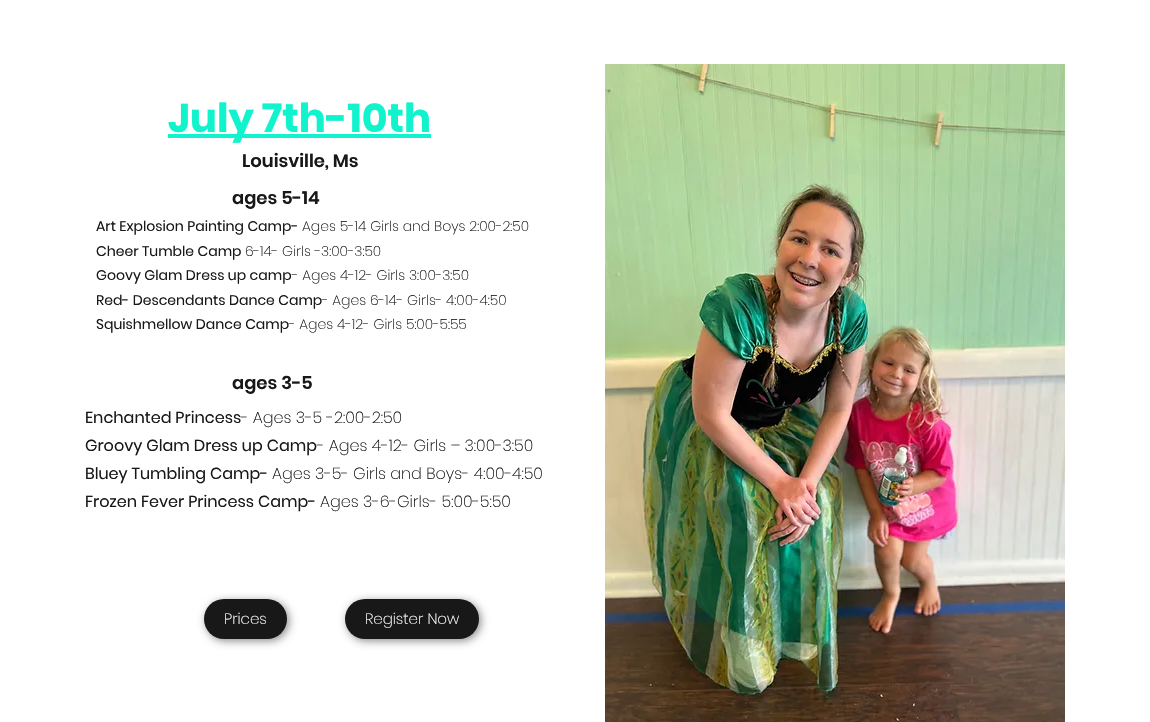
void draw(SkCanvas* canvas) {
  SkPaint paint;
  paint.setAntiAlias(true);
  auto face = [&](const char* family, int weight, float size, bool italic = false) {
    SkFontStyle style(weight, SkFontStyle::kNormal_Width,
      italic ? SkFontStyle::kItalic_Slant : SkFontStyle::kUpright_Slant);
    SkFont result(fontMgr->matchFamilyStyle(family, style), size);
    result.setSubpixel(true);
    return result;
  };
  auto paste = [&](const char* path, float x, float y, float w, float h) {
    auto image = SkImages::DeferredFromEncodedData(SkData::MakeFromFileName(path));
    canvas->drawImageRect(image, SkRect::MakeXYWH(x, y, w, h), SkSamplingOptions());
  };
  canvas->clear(0xffffffff);
  paint.setColor(0xff10f3cd);
  canvas->drawRect(SkRect::MakeXYWH(168, 134, 263, 4), paint);
  paint.setColor(0x73000000);
  paint.setMaskFilter(SkMaskFilter::MakeBlur(kNormal_SkBlurStyle, 4));
  canvas->drawRoundRect(SkRect::MakeXYWH(206, 601, 83, 40), 20, 20, paint);
  paint.setMaskFilter(nullptr);
  paint.setColor(0xff181818);
  canvas->drawRoundRect(SkRect::MakeXYWH(204, 599, 83, 40), 20, 20, paint);
  paint.setColor(0x73000000);
  paint.setMaskFilter(SkMaskFilter::MakeBlur(kNormal_SkBlurStyle, 4));
  canvas->drawRoundRect(SkRect::MakeXYWH(347, 601, 134, 40), 20, 20, paint);
  paint.setMaskFilter(nullptr);
  paint.setColor(0xff181818);
  canvas->drawRoundRect(SkRect::MakeXYWH(345, 599, 134, 40), 20, 20, paint);
  paste("img/1.png", 605, 64, 460, 658);
  auto f0 = face("Poppins", 700, 40);
  paint.setColor(0xff10f3cd);
  canvas->drawString("July 7th-10th", 168, 132, f0, paint);
  auto f1 = face("Poppins", 600, 18);
  paint.setColor(0xff181818);
  canvas->drawString("Louisville, Ms", 242, 167, f1, paint);
  canvas->drawString("ages 5-14", 232, 204, f1, paint);
  auto f2 = face("Poppins", 400, 14);
  canvas->drawString("Art Explosion Painting Camp-", 96, 231, f2, paint);
  auto f3 = face("Poppins", 200, 14);
  canvas->drawString("Ages 5-14 Girls and Boys 2:00-2:50", 302, 231, f3, paint);
  canvas->drawString("Cheer Tumble Camp", 96, 256, f2, paint);
  canvas->drawString("6-14- Girls -3:00-3:50", 245, 256, f3, paint);
  canvas->drawString("Goovy Glam Dress up camp", 96, 280, f2, paint);
  canvas->drawString("- Ages 4-12- Girls 3:00-3:50", 292, 280, f3, paint);
  canvas->drawString("Red- Descendants Dance Camp", 96, 305, f2, paint);
  canvas->drawString("- Ages 6-14- Girls- 4:00-4:50", 322, 305, f3, paint);
  canvas->drawString("Squishmellow Dance Camp", 96, 329, f2, paint);
  canvas->drawString("- Ages 4-12- Girls 5:00-5:55", 289, 329, f3, paint);
  canvas->drawString("ages 3-5", 232, 389, f1, paint);
  auto f4 = face("Poppins", 400, 16);
  canvas->drawString("Enchanted Princess", 85, 423, f4, paint);
  auto f5 = face("Poppins", 200, 16);
  canvas->drawString("- Ages 3-5 -2:00-2:50", 241, 423, f5, paint);
  canvas->drawString("Groovy Glam Dress up Camp", 85, 451, f4, paint);
  canvas->drawString("- Ages 4-12- Girls – 3:00-3:50", 317, 451, f5, paint);
  canvas->drawString("Bluey Tumbling Camp-", 85, 479, f4, paint);
  canvas->drawString("Ages 3-5- Girls and Boys- 4:00-4:50", 272, 479, f5, paint);
  canvas->drawString("Frozen Fever Princess Camp-", 85, 507, f4, paint);
  canvas->drawString("Ages 3-6-Girls- 5:00-5:50", 320, 507, f5, paint);
  auto f6 = face("Poppins", 200, 15);
  paint.setColor(0xffffffff);
  canvas->drawString("Prices", 224, 624, f6, paint);
  canvas->drawString("Register Now", 365, 624, f6, paint);
}
